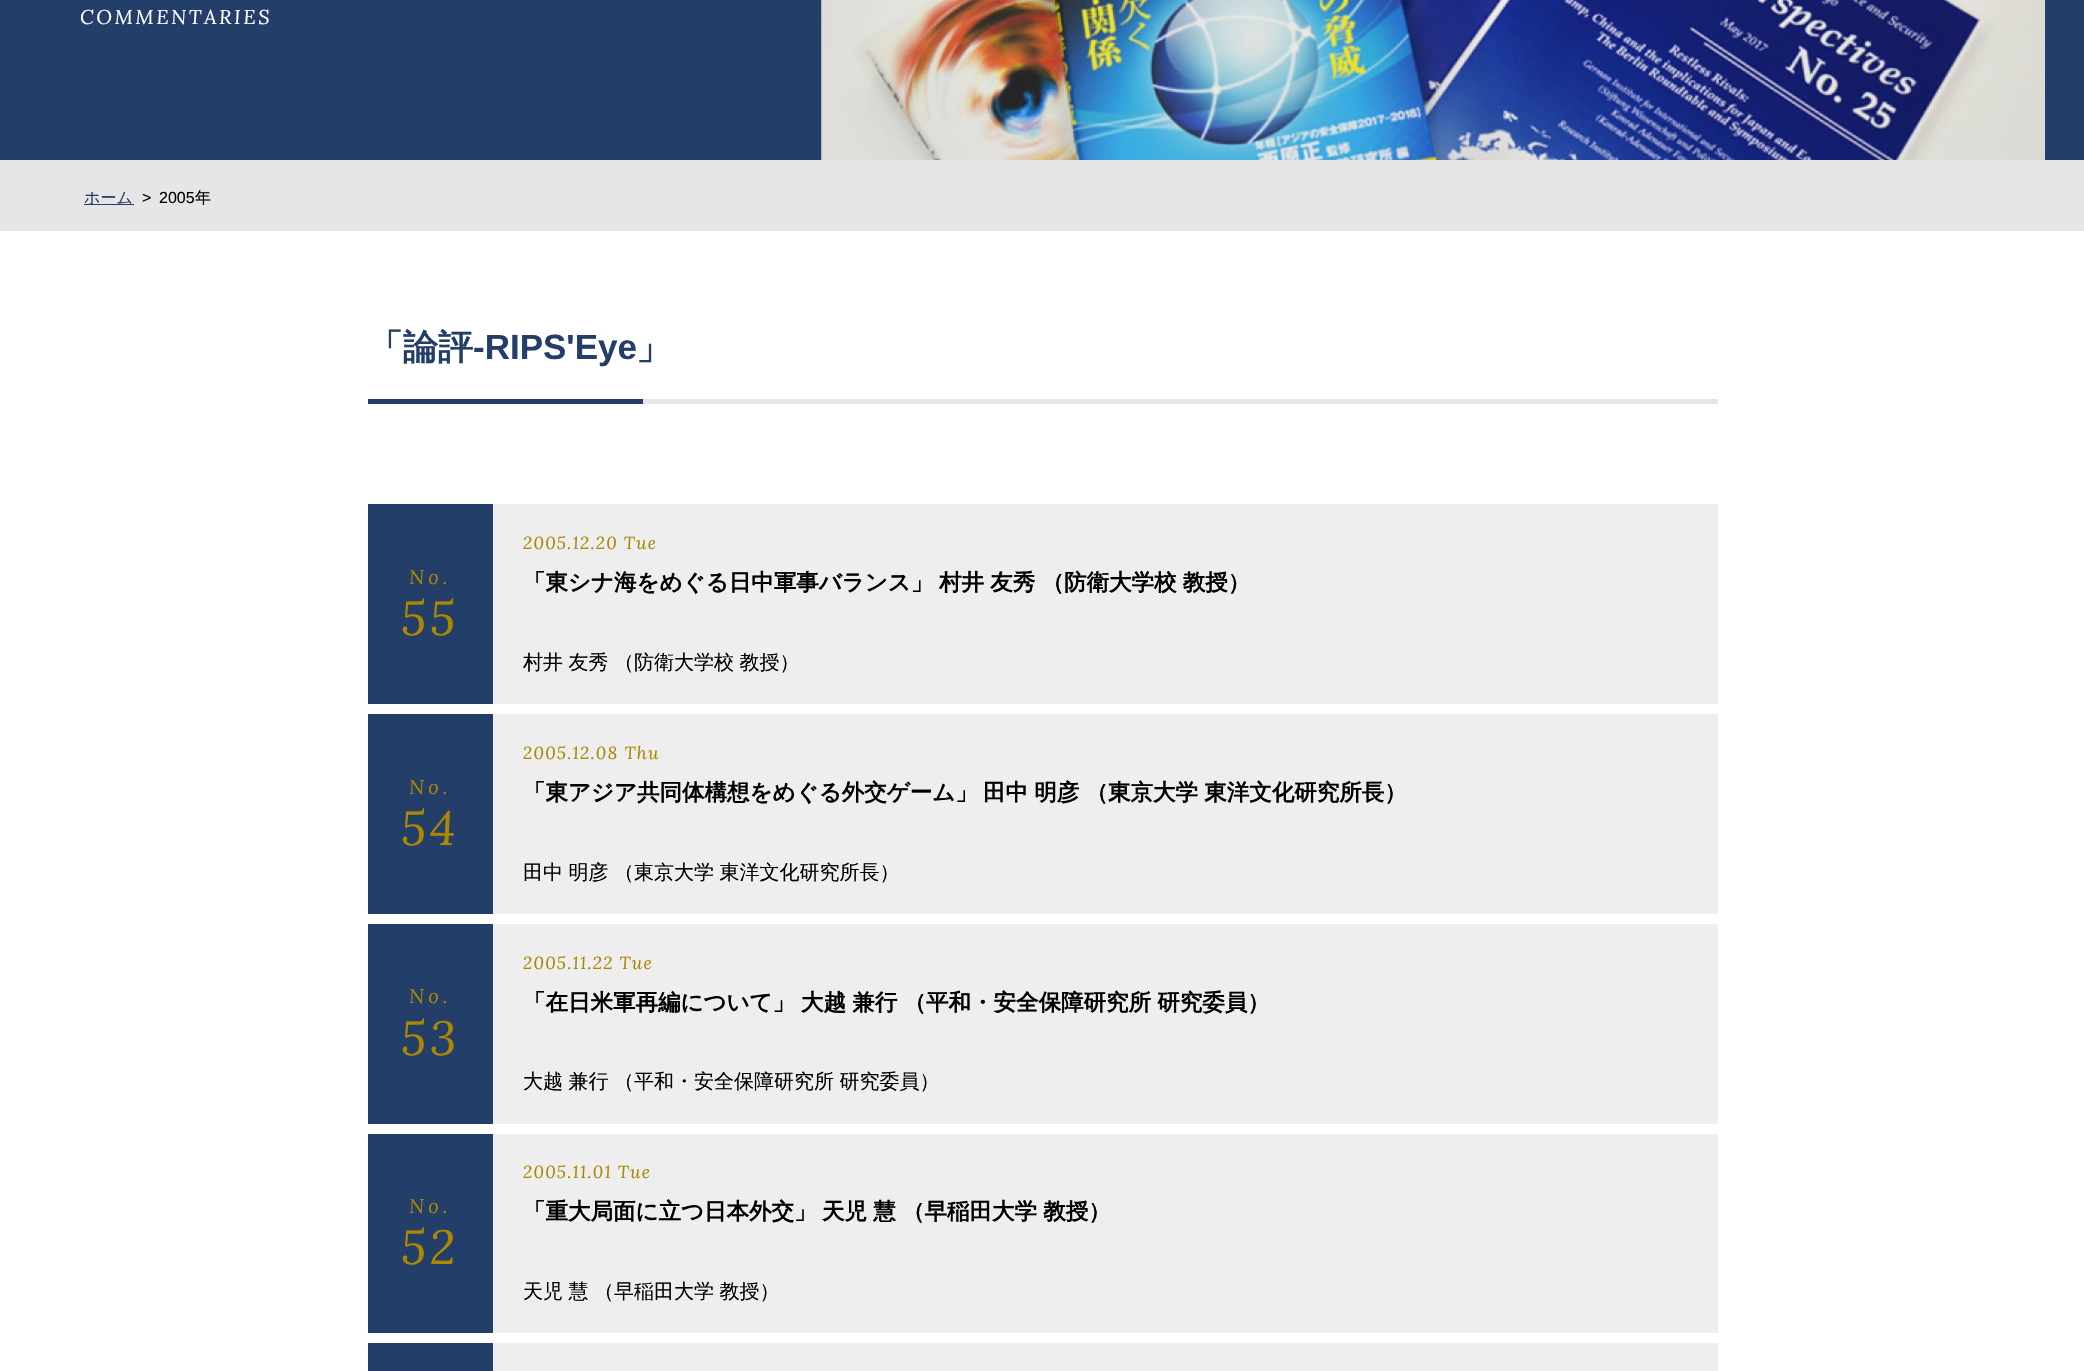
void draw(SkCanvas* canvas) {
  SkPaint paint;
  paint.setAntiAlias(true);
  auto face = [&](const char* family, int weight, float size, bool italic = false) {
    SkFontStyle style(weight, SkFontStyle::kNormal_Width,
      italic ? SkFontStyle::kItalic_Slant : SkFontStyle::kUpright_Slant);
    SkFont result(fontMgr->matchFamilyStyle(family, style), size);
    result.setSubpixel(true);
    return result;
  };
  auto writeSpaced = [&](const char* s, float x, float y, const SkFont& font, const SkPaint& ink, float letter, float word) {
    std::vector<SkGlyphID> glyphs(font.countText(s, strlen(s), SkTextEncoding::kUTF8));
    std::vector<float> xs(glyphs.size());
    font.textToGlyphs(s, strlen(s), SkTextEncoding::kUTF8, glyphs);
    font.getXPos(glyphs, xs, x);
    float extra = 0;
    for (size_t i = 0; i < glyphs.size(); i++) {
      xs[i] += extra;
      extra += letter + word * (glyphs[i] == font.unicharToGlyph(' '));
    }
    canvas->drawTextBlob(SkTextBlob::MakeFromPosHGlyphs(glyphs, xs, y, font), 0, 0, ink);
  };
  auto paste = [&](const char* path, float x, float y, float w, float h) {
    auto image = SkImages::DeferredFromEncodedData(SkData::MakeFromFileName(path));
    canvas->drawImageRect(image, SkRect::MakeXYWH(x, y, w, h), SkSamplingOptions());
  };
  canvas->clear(0xffffffff);
  paint.setColor(0xff233e68);
  canvas->drawRect(SkRect::MakeXYWH(0, 0, 2084, 160), paint);
  paste("img/1.png", 821, 0, 1224, 160);
  {
    const struct { float x, y, w, h; SkColor color; } items[] = {
      {0, 160, 2084, 71, 0xffe6e6e6},
      {84, 204, 50, 1, 0xff233e68},
      {643, 399, 1075, 5, 0xffe6e6e6},
      {368, 399, 275, 5, 0xff233e68},
      {368, 504, 125, 200, 0xff233e68},
      {493, 504, 1225, 200, 0xffeeeeee},
      {368, 714, 125, 200, 0xff233e68},
      {493, 714, 1225, 200, 0xffeeeeee},
      {368, 924, 125, 200, 0xff233e68},
      {493, 924, 1225, 200, 0xffeeeeee},
      {368, 1134, 125, 199, 0xff233e68},
      {493, 1134, 1225, 199, 0xffeeeeee},
      {368, 1343, 125, 28, 0xff233e68},
      {493, 1343, 1225, 28, 0xffeeeeee},
    };
    for (auto [x, y, w, h, color] : items) {
      paint.setColor(color);
      canvas->drawRect(SkRect::MakeXYWH(x, y, w, h), paint);
    }
  }
  auto f0 = face("Lora", 400, 20, true);
  paint.setColor(0xffffffff);
  writeSpaced("COMMENTARIES", 80, 24, f0, paint, 2.5f, 0);
  auto f1 = face("WenQuanYi Zen Hei", 500, 16);
  paint.setColor(0xff233e68);
  canvas->drawString("ホーム", 84, 203, f1, paint);
  auto f2 = face("Liberation Sans", 400, 16);
  paint.setColor(0xff000000);
  canvas->drawString(">", 142, 203, f2, paint);
  canvas->drawString("2005", 159, 203, f2, paint);
  canvas->drawString("年", 195, 203, f1, paint);
  auto f3 = face("WenQuanYi Zen Hei", 700, 35);
  paint.setColor(0xff233e68);
  canvas->drawString("「論評", 368, 359, f3, paint);
  auto f4 = face("Liberation Sans", 700, 35);
  canvas->drawString("-RIPS'Eye", 473, 359, f4, paint);
  canvas->drawString("」", 636, 359, f3, paint);
  paint.setColor(0xffab8702);
  writeSpaced("No.", 409, 584, f0, paint, 4, 0);
  auto f5 = face("Lora", 400, 48, true);
  writeSpaced("55", 401, 635, f5, paint, 4, 0);
  auto f6 = face("Lora", 400, 17.5f, true);
  writeSpaced("2005.12.20 Tue", 523, 549, f6, paint, 1.25f, 0);
  auto f7 = face("WenQuanYi Zen Hei", 700, 22.5f);
  paint.setColor(0xff000000);
  canvas->drawString("「東シナ海をめぐる日中軍事バランス」", 523, 590, f7, paint);
  writeSpaced("村井 友秀 （防衛大学校 教授）", 939, 590, f7, paint, 0, -0.5f);
  auto f8 = face("WenQuanYi Zen Hei", 500, 20);
  writeSpaced("村井 友秀 （防衛大学校 教授）", 523, 669, f8, paint, 0, -0.5f);
  paint.setColor(0xffab8702);
  writeSpaced("No.", 409, 794, f0, paint, 4, 0);
  writeSpaced("54", 401, 845, f5, paint, 4, 0);
  writeSpaced("2005.12.08 Thu", 523, 759, f6, paint, 1.25f, 0);
  paint.setColor(0xff000000);
  canvas->drawString("「東アジア共同体構想をめぐる外交ゲーム」", 523, 800, f7, paint);
  writeSpaced("田中 明彦 （東京大学 東洋文化研究所長）", 983, 800, f7, paint, 0, -0.5f);
  writeSpaced("田中 明彦 （東京大学 東洋文化研究所長）", 523, 879, f8, paint, 0, -0.5f);
  paint.setColor(0xffab8702);
  writeSpaced("No.", 409, 1003, f0, paint, 4, 0);
  writeSpaced("53", 401, 1055, f5, paint, 4, 0);
  writeSpaced("2005.11.22 Tue", 523, 969, f6, paint, 1.25f, 0);
  paint.setColor(0xff000000);
  canvas->drawString("「在日米軍再編について」", 523, 1010, f7, paint);
  writeSpaced("大越 兼行 （平和・安全保障研究所 研究委員）", 801, 1010, f7, paint, 0, -0.5f);
  writeSpaced("大越 兼行 （平和・安全保障研究所 研究委員）", 523, 1088, f8, paint, 0, -0.5f);
  paint.setColor(0xffab8702);
  writeSpaced("No.", 409, 1213, f0, paint, 4, 0);
  writeSpaced("52", 401, 1264, f5, paint, 4, 0);
  writeSpaced("2005.11.01 Tue", 523, 1178, f6, paint, 1.25f, 0);
  paint.setColor(0xff000000);
  canvas->drawString("「重大局面に立つ日本外交」", 523, 1219, f7, paint);
  writeSpaced("天児 慧 （早稲田大学 教授）", 822, 1219, f7, paint, 0, -0.5f);
  writeSpaced("天児 慧 （早稲田大学 教授）", 523, 1298, f8, paint, 0, -0.5f);
}
